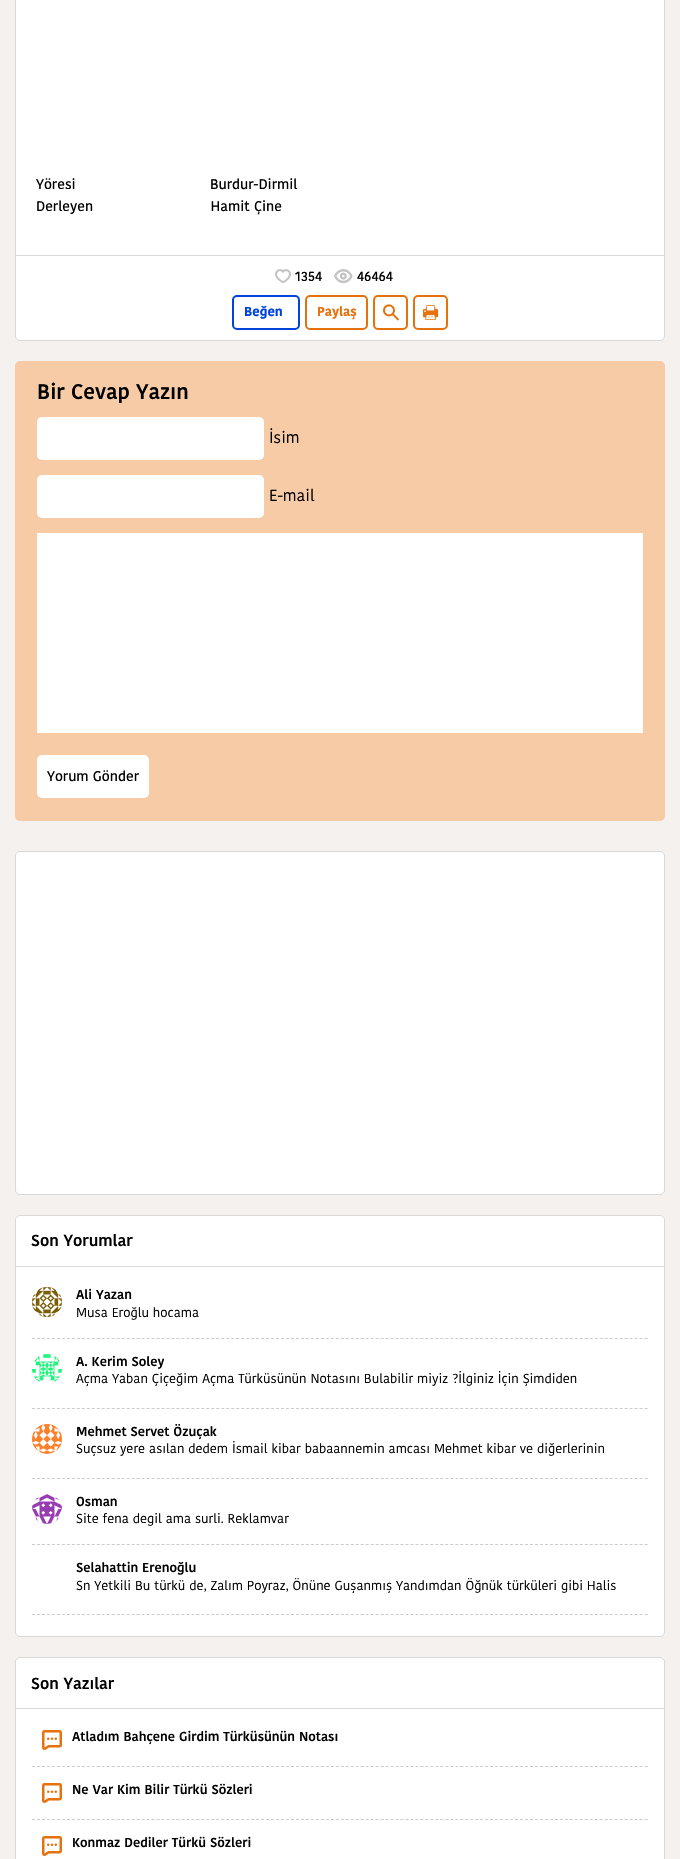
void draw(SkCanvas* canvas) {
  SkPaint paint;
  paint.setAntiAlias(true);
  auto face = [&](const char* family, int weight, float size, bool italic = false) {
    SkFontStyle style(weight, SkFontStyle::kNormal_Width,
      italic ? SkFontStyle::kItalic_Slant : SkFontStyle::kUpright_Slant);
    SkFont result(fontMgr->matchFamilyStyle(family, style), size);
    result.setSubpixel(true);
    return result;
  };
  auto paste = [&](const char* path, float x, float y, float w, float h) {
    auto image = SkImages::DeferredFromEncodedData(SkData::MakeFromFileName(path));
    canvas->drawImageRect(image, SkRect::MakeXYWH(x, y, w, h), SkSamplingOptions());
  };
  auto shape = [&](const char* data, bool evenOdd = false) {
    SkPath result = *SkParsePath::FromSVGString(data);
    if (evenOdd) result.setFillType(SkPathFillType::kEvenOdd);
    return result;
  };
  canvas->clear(0xfff5f1ee);
  paint.setColor(0xffffffff);
  canvas->drawRoundRect(SkRect::MakeXYWH(15, -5, 650, 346), 5, 5, paint);
  paint.setStroke(true);
  paint.setStrokeWidth(1);
  paint.setColor(0x26000000);
  canvas->drawRoundRect(SkRect::MakeXYWH(15.5f, -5.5f, 649, 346), 4.5f, 4.5f, paint);
  paint.setStroke(false);
  paint.setColor(0xffd9d9d9);
  canvas->drawRect(SkRect::MakeXYWH(16, 255, 648, 1), paint);
  paste("img/1.png", 275, 269, 16, 14);
  paste("img/2.png", 334, 269, 19, 15);
  paint.setStroke(true);
  paint.setStrokeWidth(2);
  paint.setColor(0xff0044dd);
  canvas->drawRoundRect(SkRect::MakeXYWH(233, 296, 66, 33), 4, 4, paint);
  paint.setColor(0xffe6720e);
  canvas->drawRoundRect(SkRect::MakeXYWH(306, 296, 61, 33), 4, 4, paint);
  canvas->drawRoundRect(SkRect::MakeXYWH(374, 296, 33, 33), 4, 4, paint);
  paste("img/3.png", 383, 304, 16, 17);
  canvas->drawRoundRect(SkRect::MakeXYWH(414, 296, 33, 33), 4, 4, paint);
  paste("img/4.png", 423, 305, 16, 15);
  paint.setStroke(false);
  paint.setColor(0xfff6cba6);
  canvas->drawRoundRect(SkRect::MakeXYWH(15, 361, 650, 460), 5, 5, paint);
  paint.setColor(0xffffffff);
  canvas->drawRoundRect(SkRect::MakeXYWH(37, 417, 227, 43), 5, 5, paint);
  canvas->drawRoundRect(SkRect::MakeXYWH(37, 475, 227, 43), 5, 5, paint);
  canvas->drawRect(SkRect::MakeXYWH(37, 533, 606, 200), paint);
  canvas->drawRoundRect(SkRect::MakeXYWH(37, 755, 112, 43), 5, 5, paint);
  canvas->drawRoundRect(SkRect::MakeXYWH(15, 851, 650, 344), 5, 5, paint);
  paint.setStroke(true);
  paint.setStrokeWidth(1);
  paint.setColor(0x26000000);
  canvas->drawRoundRect(SkRect::MakeXYWH(15.5f, 851.5f, 649, 343), 4.5f, 4.5f, paint);
  paint.setStroke(false);
  paint.setColor(0xffffffff);
  canvas->drawRoundRect(SkRect::MakeXYWH(15, 1215, 650, 422), 5, 5, paint);
  paint.setStroke(true);
  paint.setColor(0x26000000);
  canvas->drawRoundRect(SkRect::MakeXYWH(15.5f, 1215.5f, 649, 421), 4.5f, 4.5f, paint);
  paint.setStroke(false);
  paint.setColor(0xffd9d9d9);
  canvas->drawRect(SkRect::MakeXYWH(16, 1266, 648, 1), paint);
  paint.setStroke(true);
  paint.setColor(0xffcccccc);
  paint.setPathEffect(SkDashPathEffect::Make({{3, 1.98f}}, 0));
  canvas->drawPath(shape("M32 1338.5H648"), paint);
  paint.setPathEffect(nullptr);
  paste("img/5.png", 32, 1287, 30, 30);
  paint.setPathEffect(SkDashPathEffect::Make({{3, 1.98f}}, 0));
  canvas->drawPath(shape("M32 1408.5H648"), paint);
  paint.setPathEffect(nullptr);
  paste("img/6.png", 32, 1354, 30, 28);
  paint.setPathEffect(SkDashPathEffect::Make({{3, 1.98f}}, 0));
  canvas->drawPath(shape("M32 1478.5H648"), paint);
  paint.setPathEffect(nullptr);
  paste("img/7.png", 32, 1424, 30, 30);
  paint.setPathEffect(SkDashPathEffect::Make({{3, 1.98f}}, 0));
  canvas->drawPath(shape("M32 1544.5H648"), paint);
  paint.setPathEffect(nullptr);
  paste("img/8.png", 32, 1494, 30, 30);
  paint.setPathEffect(SkDashPathEffect::Make({{3, 1.98f}}, 0));
  canvas->drawPath(shape("M32 1614.5H648"), paint);
  paint.setPathEffect(nullptr);
  paint.setStroke(false);
  paint.setColor(0xffffffff);
  canvas->drawRoundRect(SkRect::MakeXYWH(15, 1657, 650, 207), 5, 5, paint);
  paint.setStroke(true);
  paint.setColor(0x26000000);
  canvas->drawRoundRect(SkRect::MakeXYWH(15.5f, 1657.5f, 649, 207), 4.5f, 4.5f, paint);
  paint.setStroke(false);
  paint.setColor(0xffd9d9d9);
  canvas->drawRect(SkRect::MakeXYWH(16, 1708, 648, 1), paint);
  paint.setStroke(true);
  paint.setColor(0xffcccccc);
  paint.setPathEffect(SkDashPathEffect::Make({{3, 1.98f}}, 0));
  canvas->drawPath(shape("M32 1766.5H648"), paint);
  paint.setPathEffect(nullptr);
  paste("img/9.png", 42, 1730, 20, 20);
  paint.setPathEffect(SkDashPathEffect::Make({{3, 1.98f}}, 0));
  canvas->drawPath(shape("M32 1819.5H648"), paint);
  paint.setPathEffect(nullptr);
  paste("img/9.png", 42, 1783, 20, 20);
  paste("img/9.png", 42, 1836, 20, 20);
  auto f0 = face("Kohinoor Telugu", 500, 14);
  paint.setStroke(false);
  paint.setColor(0xff000000);
  {
    const struct { const char* s; float x, y; } items[] = {
      {"Yöresi                                Burdur-Dirmil", 36, 189},
      {"Derleyen                            Hamit Çine", 36, 211},
      {"1354", 295, 281},
      {"46464", 357, 281},
    };
    for (auto [s, x, y] : items) {
      canvas->drawString(s, x, y, f0, paint);
    }
  }
  auto f1 = face("Kohinoor Telugu", 700, 13);
  paint.setColor(0xff0044dd);
  canvas->drawString("Beğen", 244, 316, f1, paint);
  paint.setColor(0xffe6720e);
  canvas->drawString("Paylaş", 317, 316, f1, paint);
  auto f2 = face("Kohinoor Telugu", 600, 21);
  paint.setColor(0xff000000);
  canvas->drawString("Bir Cevap Yazın", 37, 399, f2, paint);
  auto f3 = face("Kohinoor Telugu", 400, 16);
  canvas->drawString("İsim", 269, 443, f3, paint);
  canvas->drawString("E-mail", 269, 501, f3, paint);
  canvas->drawString("Yorum Gönder", 47, 781, f0, paint);
  auto f4 = face("Kohinoor Telugu", 600, 16);
  canvas->drawString("Son Yorumlar", 31, 1246, f4, paint);
  auto f5 = face("Kohinoor Telugu", 600, 13);
  canvas->drawString("Ali Yazan", 76, 1299, f5, paint);
  auto f6 = face("Kohinoor Telugu", 400, 13);
  canvas->drawString("Musa Eroğlu hocama", 76, 1317, f6, paint);
  canvas->drawString("A. Kerim Soley", 76, 1366, f5, paint);
  canvas->drawString("Açma Yaban Çiçeğim Açma Türküsünün Notasını Bulabilir miyiz ?İlginiz İçin Şimdiden", 76, 1383, f6, paint);
  canvas->drawString("Mehmet Servet Özuçak", 76, 1436, f5, paint);
  canvas->drawString("Suçsuz yere asılan dedem İsmail kibar babaannemin amcası Mehmet kibar ve diğerlerinin", 76, 1453, f6, paint);
  canvas->drawString("Osman", 76, 1506, f5, paint);
  canvas->drawString("Site fena degil ama surli. Reklamvar", 76, 1523, f6, paint);
  canvas->drawString("Selahattin Erenoğlu", 76, 1572, f5, paint);
  canvas->drawString("Sn Yetkili Bu türkü de, Zalım Poyraz, Önüne Guşanmış Yandımdan Öğnük türküleri gibi Halis", 76, 1590, f6, paint);
  canvas->drawString("Son Yazılar", 31, 1689, f4, paint);
  {
    const struct { const char* s; float x, y; } items[] = {
      {"Atladım Bahçene Girdim Türküsünün Notası", 72, 1741},
      {"Ne Var Kim Bilir Türkü Sözleri", 72, 1794},
      {"Konmaz Dediler Türkü Sözleri", 72, 1847},
    };
    for (auto [s, x, y] : items) {
      canvas->drawString(s, x, y, f5, paint);
    }
  }
}
